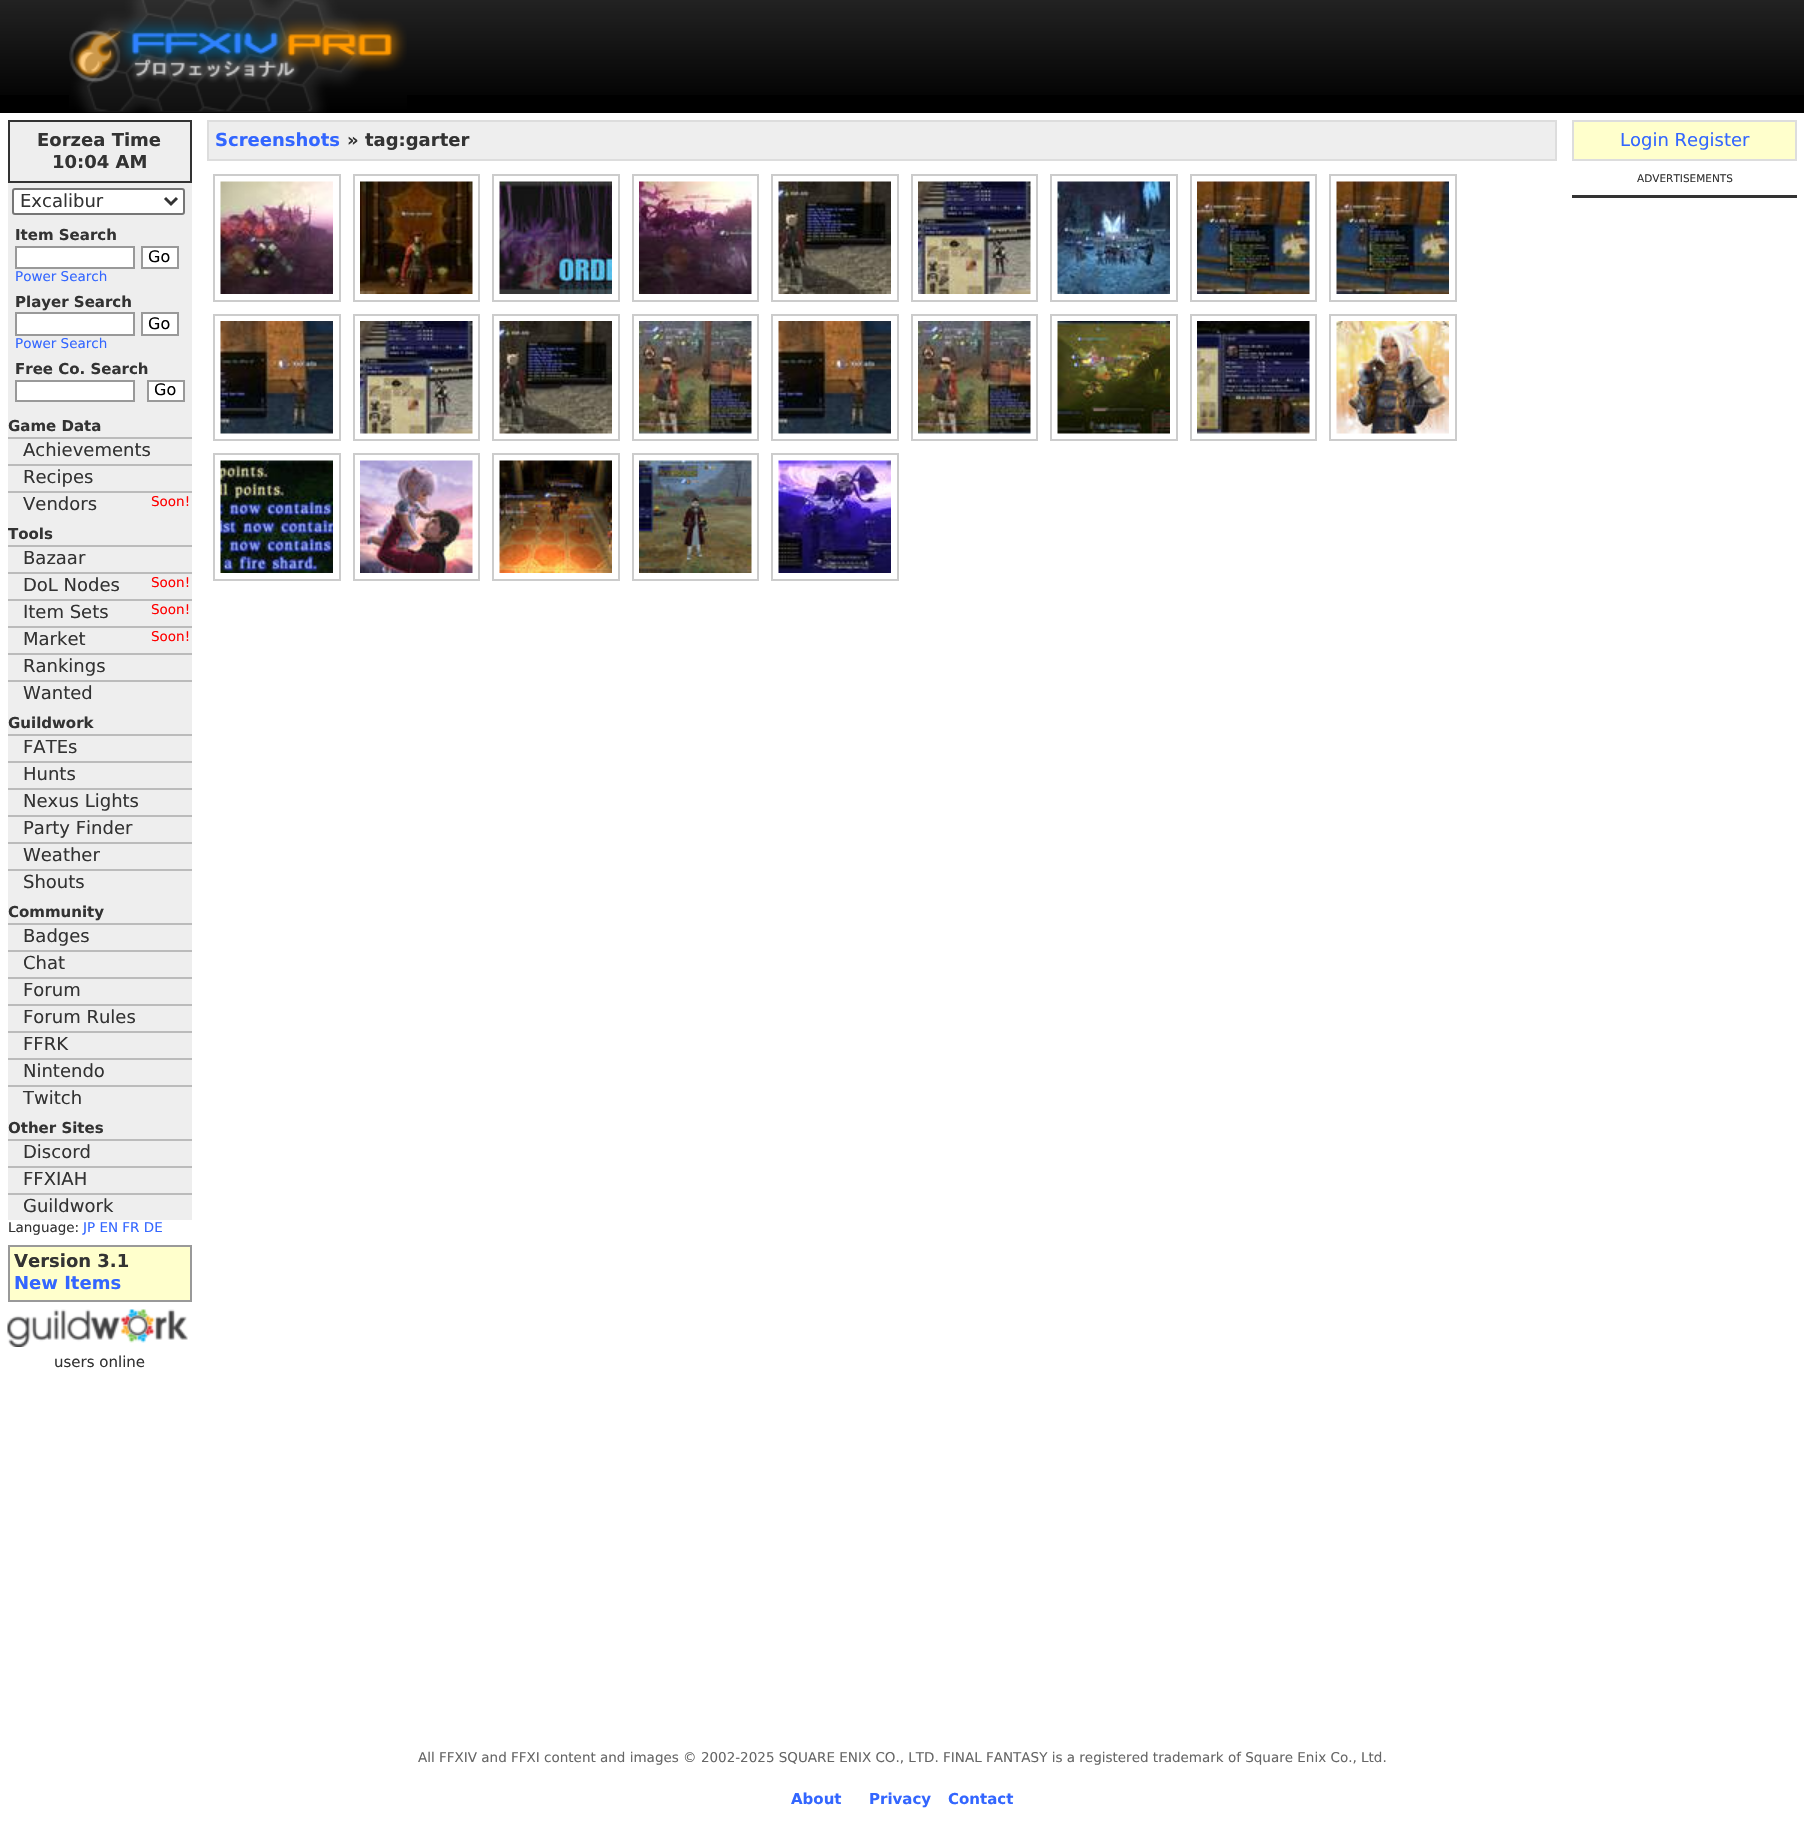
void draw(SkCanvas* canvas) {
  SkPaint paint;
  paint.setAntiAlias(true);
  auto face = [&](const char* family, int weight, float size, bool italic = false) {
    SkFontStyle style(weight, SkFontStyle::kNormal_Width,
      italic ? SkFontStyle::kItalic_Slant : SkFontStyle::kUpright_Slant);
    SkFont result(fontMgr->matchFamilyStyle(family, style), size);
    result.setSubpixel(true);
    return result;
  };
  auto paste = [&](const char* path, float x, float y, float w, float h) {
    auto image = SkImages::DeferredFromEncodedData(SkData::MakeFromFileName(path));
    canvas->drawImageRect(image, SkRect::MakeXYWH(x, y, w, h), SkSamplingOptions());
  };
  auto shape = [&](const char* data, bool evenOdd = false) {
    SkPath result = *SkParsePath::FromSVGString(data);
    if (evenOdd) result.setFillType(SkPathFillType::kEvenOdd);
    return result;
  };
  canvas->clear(0xffffffff);
  paint.setColor(0xff000000);
  canvas->drawRect(SkRect::MakeXYWH(0, 95, 1804, 18), paint);
  paste("img/1.png", 0, 0, 1804, 95);
  paste("img/2.png", 69, 0, 338, 113);
  paint.setColor(0xffeeeeee);
  canvas->drawRect(SkRect::MakeXYWH(8, 122, 184, 1098), paint);
  paint.setStroke(true);
  paint.setStrokeWidth(2);
  paint.setColor(0xff333333);
  canvas->drawRect(SkRect::MakeXYWH(9, 121, 182, 61), paint);
  paint.setStroke(false);
  paint.setColor(0xffffffff);
  canvas->drawRoundRect(SkRect::MakeXYWH(13, 189, 171, 25), 2, 2, paint);
  paint.setStroke(true);
  paint.setColor(0xff767676);
  canvas->drawRoundRect(SkRect::MakeXYWH(13, 189, 171, 25), 2, 2, paint);
  paint.setStrokeWidth(3);
  paint.setColor(0xff333333);
  canvas->drawPath(shape("M165 198L171 204L177 198"), paint);
  paint.setStroke(false);
  paint.setColor(0xffffffff);
  canvas->drawRect(SkRect::MakeXYWH(16, 247, 118, 21), paint);
  paint.setStroke(true);
  paint.setStrokeWidth(2);
  paint.setColor(0xff999999);
  canvas->drawRect(SkRect::MakeXYWH(16, 247, 118, 21), paint);
  paint.setStroke(false);
  paint.setColor(0xffffffff);
  canvas->drawRect(SkRect::MakeXYWH(142, 247, 36, 21), paint);
  paint.setStroke(true);
  paint.setColor(0xff999999);
  canvas->drawRect(SkRect::MakeXYWH(142, 247, 36, 21), paint);
  paint.setStroke(false);
  paint.setColor(0xffffffff);
  canvas->drawRect(SkRect::MakeXYWH(16, 313, 118, 22), paint);
  paint.setStroke(true);
  paint.setColor(0xff999999);
  canvas->drawRect(SkRect::MakeXYWH(16, 313, 118, 22), paint);
  paint.setStroke(false);
  paint.setColor(0xffffffff);
  canvas->drawRect(SkRect::MakeXYWH(142, 313, 36, 22), paint);
  paint.setStroke(true);
  paint.setColor(0xff999999);
  canvas->drawRect(SkRect::MakeXYWH(142, 313, 36, 22), paint);
  paint.setStroke(false);
  paint.setColor(0xffffffff);
  canvas->drawRect(SkRect::MakeXYWH(16, 381, 118, 20), paint);
  paint.setStroke(true);
  paint.setColor(0xff999999);
  canvas->drawRect(SkRect::MakeXYWH(16, 381, 118, 20), paint);
  paint.setStroke(false);
  paint.setColor(0xffffffff);
  canvas->drawRect(SkRect::MakeXYWH(148, 381, 36, 20), paint);
  paint.setStroke(true);
  paint.setColor(0xff999999);
  canvas->drawRect(SkRect::MakeXYWH(148, 381, 36, 20), paint);
  paint.setStroke(false);
  {
    const struct { float x, y, w, h; SkColor color; } items[] = {
      {8, 437, 184, 2, 0xffbbbbbb},
      {8, 464, 184, 2, 0xffbbbbbb},
      {8, 491, 184, 2, 0xffbbbbbb},
      {8, 545, 184, 2, 0xffbbbbbb},
      {8, 572, 184, 2, 0xffbbbbbb},
      {8, 599, 184, 2, 0xffbbbbbb},
      {8, 626, 184, 2, 0xffbbbbbb},
      {8, 653, 184, 2, 0xffbbbbbb},
      {8, 680, 184, 2, 0xffbbbbbb},
      {8, 734, 184, 2, 0xffbbbbbb},
      {8, 761, 184, 2, 0xffbbbbbb},
      {8, 788, 184, 2, 0xffbbbbbb},
      {8, 815, 184, 2, 0xffbbbbbb},
      {8, 842, 184, 2, 0xffbbbbbb},
      {8, 869, 184, 2, 0xffbbbbbb},
      {8, 923, 184, 2, 0xffbbbbbb},
      {8, 950, 184, 2, 0xffbbbbbb},
      {8, 977, 184, 2, 0xffbbbbbb},
      {8, 1004, 184, 2, 0xffbbbbbb},
      {8, 1031, 184, 2, 0xffbbbbbb},
      {8, 1058, 184, 2, 0xffbbbbbb},
      {8, 1085, 184, 2, 0xffbbbbbb},
      {8, 1139, 184, 2, 0xffbbbbbb},
      {8, 1166, 184, 2, 0xffbbbbbb},
      {8, 1193, 184, 2, 0xffbbbbbb},
    };
    for (auto [x, y, w, h, color] : items) {
      paint.setColor(color);
      canvas->drawRect(SkRect::MakeXYWH(x, y, w, h), paint);
    }
  }
  paint.setColor(0xffffffcc);
  canvas->drawRect(SkRect::MakeXYWH(9, 1246, 182, 55), paint);
  paint.setStroke(true);
  paint.setColor(0xff999999);
  canvas->drawRect(SkRect::MakeXYWH(9, 1246, 182, 55), paint);
  paste("img/3.png", 7, 1309, 181, 38);
  paint.setStroke(false);
  paint.setColor(0xffeeeeee);
  canvas->drawRect(SkRect::MakeXYWH(208, 121, 1348, 39), paint);
  paint.setStroke(true);
  paint.setColor(0xffdddddd);
  canvas->drawRect(SkRect::MakeXYWH(208, 121, 1348, 39), paint);
  paint.setColor(0xffcccccc);
  canvas->drawRect(SkRect::MakeXYWH(214, 175, 126, 126), paint);
  paste("img/4.png", 220, 181, 113, 113);
  canvas->drawRect(SkRect::MakeXYWH(354, 175, 125, 126), paint);
  paste("img/5.png", 360, 181, 113, 113);
  canvas->drawRect(SkRect::MakeXYWH(493, 175, 126, 126), paint);
  paste("img/6.png", 499, 181, 113, 113);
  canvas->drawRect(SkRect::MakeXYWH(633, 175, 125, 126), paint);
  paste("img/7.png", 639, 181, 113, 113);
  canvas->drawRect(SkRect::MakeXYWH(772, 175, 126, 126), paint);
  paste("img/8.png", 778, 181, 113, 113);
  canvas->drawRect(SkRect::MakeXYWH(912, 175, 125, 126), paint);
  paste("img/9.png", 918, 181, 113, 113);
  canvas->drawRect(SkRect::MakeXYWH(1051, 175, 126, 126), paint);
  paste("img/10.png", 1057, 181, 113, 113);
  canvas->drawRect(SkRect::MakeXYWH(1191, 175, 125, 126), paint);
  paste("img/11.png", 1197, 181, 113, 113);
  canvas->drawRect(SkRect::MakeXYWH(1330, 175, 126, 126), paint);
  paste("img/12.png", 1336, 181, 113, 113);
  canvas->drawRect(SkRect::MakeXYWH(214, 315, 126, 125), paint);
  paste("img/13.png", 220, 321, 113, 113);
  canvas->drawRect(SkRect::MakeXYWH(354, 315, 125, 125), paint);
  paste("img/14.png", 360, 321, 113, 113);
  canvas->drawRect(SkRect::MakeXYWH(493, 315, 126, 125), paint);
  paste("img/15.png", 499, 321, 113, 113);
  canvas->drawRect(SkRect::MakeXYWH(633, 315, 125, 125), paint);
  paste("img/16.png", 639, 321, 113, 113);
  canvas->drawRect(SkRect::MakeXYWH(772, 315, 126, 125), paint);
  paste("img/13.png", 778, 321, 113, 113);
  canvas->drawRect(SkRect::MakeXYWH(912, 315, 125, 125), paint);
  paste("img/16.png", 918, 321, 113, 113);
  canvas->drawRect(SkRect::MakeXYWH(1051, 315, 126, 125), paint);
  paste("img/17.png", 1057, 321, 113, 113);
  canvas->drawRect(SkRect::MakeXYWH(1191, 315, 125, 125), paint);
  paste("img/18.png", 1197, 321, 113, 113);
  canvas->drawRect(SkRect::MakeXYWH(1330, 315, 126, 125), paint);
  paste("img/19.png", 1336, 321, 113, 113);
  canvas->drawRect(SkRect::MakeXYWH(214, 454, 126, 126), paint);
  paste("img/20.png", 220, 460, 113, 113);
  canvas->drawRect(SkRect::MakeXYWH(354, 454, 125, 126), paint);
  paste("img/21.png", 360, 460, 113, 113);
  canvas->drawRect(SkRect::MakeXYWH(493, 454, 126, 126), paint);
  paste("img/22.png", 499, 460, 113, 113);
  canvas->drawRect(SkRect::MakeXYWH(633, 454, 125, 126), paint);
  paste("img/23.png", 639, 460, 113, 113);
  canvas->drawRect(SkRect::MakeXYWH(772, 454, 126, 126), paint);
  paste("img/24.png", 778, 460, 113, 113);
  paint.setStroke(false);
  paint.setColor(0xffffffcc);
  canvas->drawRect(SkRect::MakeXYWH(1573, 121, 223, 39), paint);
  paint.setStroke(true);
  paint.setColor(0xffdddddd);
  canvas->drawRect(SkRect::MakeXYWH(1573, 121, 223, 39), paint);
  paint.setStroke(false);
  paint.setColor(0xff333333);
  canvas->drawRect(SkRect::MakeXYWH(1572, 195, 225, 3), paint);
  auto f0 = face("DejaVu Sans", 700, 18);
  canvas->drawString("Eorzea Time", 37, 146, f0, paint);
  canvas->drawString("10:04 AM", 52, 168, f0, paint);
  auto f1 = face("DejaVu Sans", 400, 18);
  canvas->drawString("Excalibur", 20, 207, f1, paint);
  auto f2 = face("DejaVu Sans", 700, 15);
  canvas->drawString("Item Search", 15, 240, f2, paint);
  auto f3 = face("DejaVu Sans", 400, 16);
  paint.setColor(0xff000000);
  canvas->drawString("Go", 148, 262, f3, paint);
  auto f4 = face("DejaVu Sans", 400, 13.5f);
  paint.setColor(0xff3366ff);
  canvas->drawString("Power Search", 15, 281, f4, paint);
  paint.setColor(0xff333333);
  canvas->drawString("Player Search", 15, 307, f2, paint);
  paint.setColor(0xff000000);
  canvas->drawString("Go", 148, 329, f3, paint);
  paint.setColor(0xff3366ff);
  canvas->drawString("Power Search", 15, 348, f4, paint);
  paint.setColor(0xff333333);
  canvas->drawString("Free Co. Search", 15, 374, f2, paint);
  paint.setColor(0xff000000);
  canvas->drawString("Go", 154, 395, f3, paint);
  paint.setColor(0xff333333);
  canvas->drawString("Game Data", 8, 431, f2, paint);
  {
    const struct { const char* s; float x, y; } items[] = {
      {"Achievements", 23, 456},
      {"Recipes", 23, 483},
      {"Vendors", 23, 510},
    };
    for (auto [s, x, y] : items) {
      canvas->drawString(s, x, y, f1, paint);
    }
  }
  paint.setColor(0xffff0000);
  canvas->drawString("Soon!", 151, 506, f4, paint);
  paint.setColor(0xff333333);
  canvas->drawString("Tools", 8, 539, f2, paint);
  canvas->drawString("Bazaar", 23, 564, f1, paint);
  canvas->drawString("DoL Nodes", 23, 591, f1, paint);
  paint.setColor(0xffff0000);
  canvas->drawString("Soon!", 151, 587, f4, paint);
  paint.setColor(0xff333333);
  canvas->drawString("Item Sets", 23, 618, f1, paint);
  paint.setColor(0xffff0000);
  canvas->drawString("Soon!", 151, 614, f4, paint);
  paint.setColor(0xff333333);
  canvas->drawString("Market", 23, 645, f1, paint);
  paint.setColor(0xffff0000);
  canvas->drawString("Soon!", 151, 641, f4, paint);
  paint.setColor(0xff333333);
  canvas->drawString("Rankings", 23, 672, f1, paint);
  canvas->drawString("Wanted", 23, 699, f1, paint);
  canvas->drawString("Guildwork", 8, 728, f2, paint);
  {
    const struct { const char* s; float x, y; } items[] = {
      {"FATEs", 23, 753},
      {"Hunts", 23, 780},
      {"Nexus Lights", 23, 807},
      {"Party Finder", 23, 834},
      {"Weather", 23, 861},
      {"Shouts", 23, 888},
    };
    for (auto [s, x, y] : items) {
      canvas->drawString(s, x, y, f1, paint);
    }
  }
  canvas->drawString("Community", 8, 917, f2, paint);
  {
    const struct { const char* s; float x, y; } items[] = {
      {"Badges", 23, 942},
      {"Chat", 23, 969},
      {"Forum", 23, 996},
      {"Forum Rules", 23, 1023},
      {"FFRK", 23, 1050},
      {"Nintendo", 23, 1077},
      {"Twitch", 23, 1104},
    };
    for (auto [s, x, y] : items) {
      canvas->drawString(s, x, y, f1, paint);
    }
  }
  canvas->drawString("Other Sites", 8, 1133, f2, paint);
  {
    const struct { const char* s; float x, y; } items[] = {
      {"Discord", 23, 1158},
      {"FFXIAH", 23, 1185},
      {"Guildwork", 23, 1212},
    };
    for (auto [s, x, y] : items) {
      canvas->drawString(s, x, y, f1, paint);
    }
  }
  canvas->drawString("Language:", 8, 1232, f4, paint);
  paint.setColor(0xff3366ff);
  canvas->drawString("JP EN FR DE", 83, 1232, f4, paint);
  paint.setColor(0xff333333);
  canvas->drawString("Version 3.1", 14, 1267, f0, paint);
  paint.setColor(0xff3366ff);
  canvas->drawString("New Items", 14, 1289, f0, paint);
  auto f5 = face("DejaVu Sans", 400, 15);
  paint.setColor(0xff333333);
  canvas->drawString("users online", 54, 1367, f5, paint);
  paint.setColor(0xff3366ff);
  canvas->drawString("Screenshots", 215, 146, f0, paint);
  paint.setColor(0xff333333);
  canvas->drawString("» tag:garter", 347, 146, f0, paint);
  paint.setColor(0xff3366ff);
  canvas->drawString("Login Register", 1620, 146, f1, paint);
  auto f6 = face("DejaVu Sans", 400, 10.5f);
  paint.setColor(0xff333333);
  canvas->drawString("ADVERTISEMENTS", 1637, 182, f6, paint);
  paint.setColor(0xff666666);
  canvas->drawString("All FFXIV and FFXI content and images © 2002-2025 SQUARE ENIX CO., LTD. FINAL FANTASY is a registered trademark of Square Enix Co., Ltd.", 418, 1762, f4, paint);
  paint.setColor(0xff3366ff);
  {
    const struct { const char* s; float x, y; } items[] = {
      {"About", 791, 1804},
      {"Privacy", 869, 1804},
      {"Contact", 948, 1804},
    };
    for (auto [s, x, y] : items) {
      canvas->drawString(s, x, y, f2, paint);
    }
  }
}
